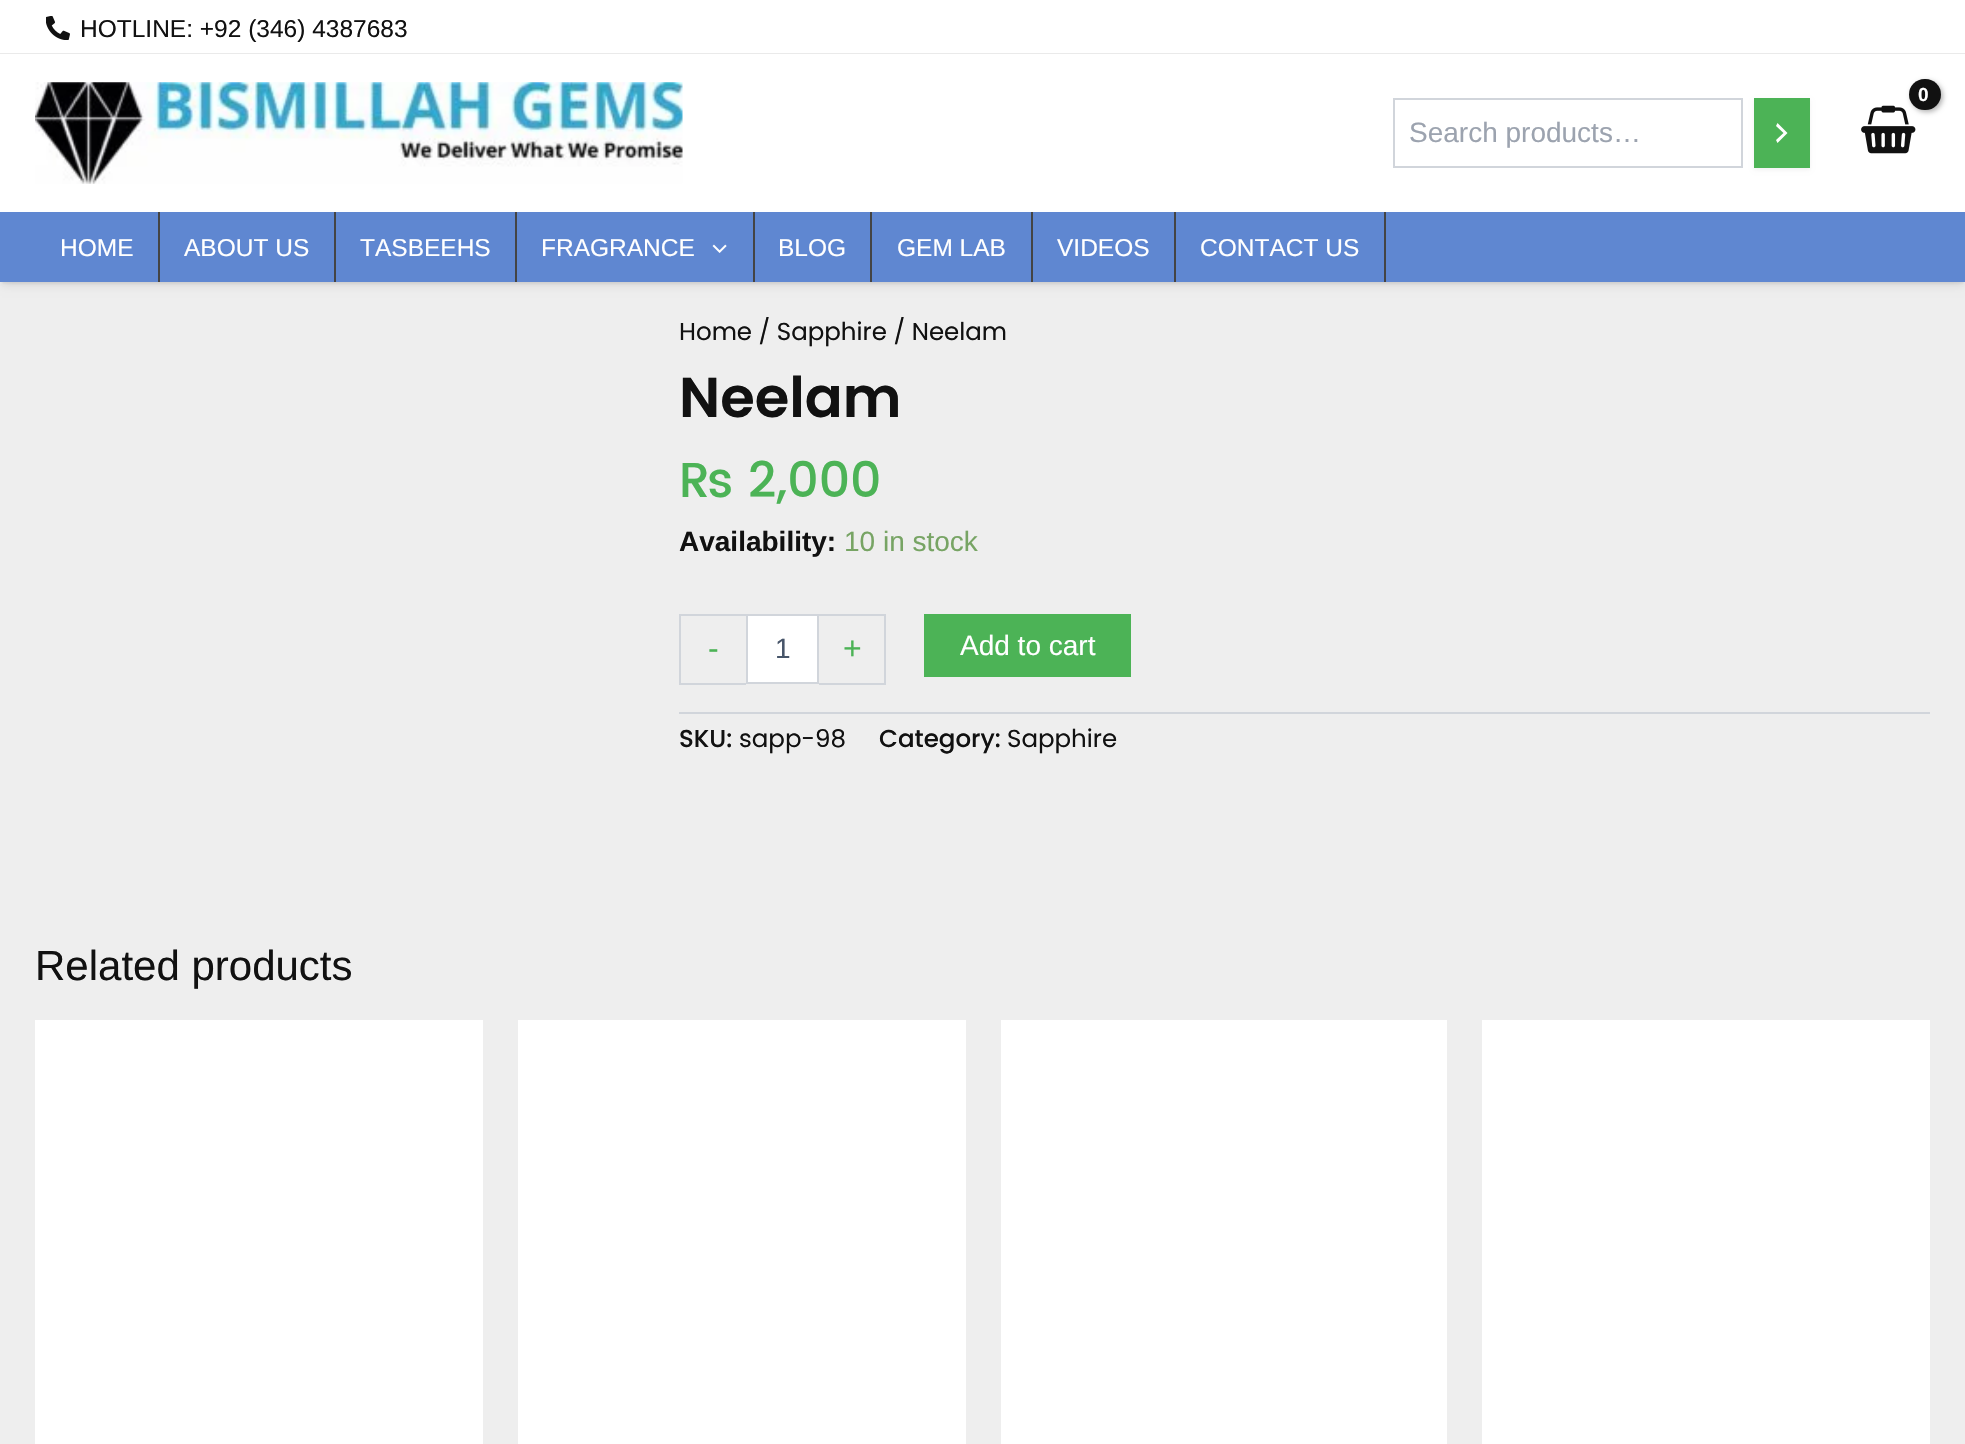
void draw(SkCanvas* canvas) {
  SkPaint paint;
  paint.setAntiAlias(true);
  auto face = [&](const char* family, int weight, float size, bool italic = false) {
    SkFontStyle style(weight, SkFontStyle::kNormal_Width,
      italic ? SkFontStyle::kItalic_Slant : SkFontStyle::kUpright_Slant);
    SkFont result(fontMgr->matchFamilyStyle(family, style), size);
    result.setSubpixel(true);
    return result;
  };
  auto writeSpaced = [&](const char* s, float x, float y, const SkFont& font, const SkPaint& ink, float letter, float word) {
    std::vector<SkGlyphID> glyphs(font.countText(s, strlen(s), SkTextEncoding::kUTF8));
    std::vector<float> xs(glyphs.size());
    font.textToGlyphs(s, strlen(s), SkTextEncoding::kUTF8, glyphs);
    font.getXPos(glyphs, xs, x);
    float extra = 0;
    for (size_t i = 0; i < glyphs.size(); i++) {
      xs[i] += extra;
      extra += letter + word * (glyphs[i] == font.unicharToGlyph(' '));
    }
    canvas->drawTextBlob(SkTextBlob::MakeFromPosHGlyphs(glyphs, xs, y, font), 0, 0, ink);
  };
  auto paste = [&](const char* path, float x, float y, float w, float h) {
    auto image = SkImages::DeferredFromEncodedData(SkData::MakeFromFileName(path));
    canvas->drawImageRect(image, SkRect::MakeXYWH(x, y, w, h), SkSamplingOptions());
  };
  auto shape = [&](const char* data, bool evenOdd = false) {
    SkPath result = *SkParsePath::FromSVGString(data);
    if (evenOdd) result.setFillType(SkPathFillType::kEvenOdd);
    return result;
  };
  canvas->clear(0xffeeeeee);
  paint.setColor(0xffffffff);
  canvas->drawRect(SkRect::MakeXYWH(0, 0, 1965, 53), paint);
  paint.setColor(0xffeaeaea);
  canvas->drawRect(SkRect::MakeXYWH(0, 53, 1965, 1), paint);
  paste("img/1.png", 46, 16, 24, 24);
  paint.setColor(0x1a000000);
  paint.setMaskFilter(SkMaskFilter::MakeBlur(kNormal_SkBlurStyle, 4.5f));
  canvas->drawRect(SkRect::MakeXYWH(2, 219, 1962, 66), paint);
  paint.setMaskFilter(nullptr);
  paint.setColor(0xffffffff);
  canvas->drawRect(SkRect::MakeXYWH(0, 54, 1965, 158), paint);
  paste("img/2.png", 35, 82, 648, 102);
  paste("img/3.png", 1861, 105, 55, 49);
  paint.setColor(0x4d000000);
  paint.setMaskFilter(SkMaskFilter::MakeBlur(kNormal_SkBlurStyle, 2.5f));
  canvas->drawRoundRect(SkRect::MakeXYWH(1911, 81, 32, 31), 15.5f, 15.5f, paint);
  paint.setMaskFilter(nullptr);
  paint.setColor(0xff111111);
  canvas->drawRoundRect(SkRect::MakeXYWH(1909, 79, 32, 31), 15.5f, 15.5f, paint);
  paint.setStroke(true);
  paint.setStrokeWidth(2);
  paint.setColor(0xffd1d5db);
  canvas->drawRect(SkRect::MakeXYWH(1394, 99, 348, 68), paint);
  paint.setStroke(false);
  paint.setColor(0x0d000000);
  paint.setMaskFilter(SkMaskFilter::MakeBlur(kNormal_SkBlurStyle, 2));
  canvas->drawRect(SkRect::MakeXYWH(1754, 100, 56, 70), paint);
  paint.setMaskFilter(nullptr);
  paint.setColor(0xff4cb356);
  canvas->drawRect(SkRect::MakeXYWH(1754, 98, 56, 70), paint);
  paint.setColor(0xffffffff);
  canvas->drawPath(shape("M1776 140L1783.5 133L1776 126L1777.5 123L1787.5 133L1777.5 143Z"), paint);
  paint.setColor(0x0d000000);
  paint.setMaskFilter(SkMaskFilter::MakeBlur(kNormal_SkBlurStyle, 1));
  canvas->drawRect(SkRect::MakeXYWH(2, 217, 1962, 67), paint);
  paint.setMaskFilter(nullptr);
  {
    const struct { float x, y, w, h; SkColor color; } items[] = {
      {0, 212, 1965, 70, 0xff5f87d1},
      {158, 212, 2, 70, 0xff444444},
      {334, 212, 2, 70, 0xff444444},
      {515, 212, 2, 70, 0xff444444},
      {753, 212, 2, 70, 0xff444444},
    };
    for (auto [x, y, w, h, color] : items) {
      paint.setColor(color);
      canvas->drawRect(SkRect::MakeXYWH(x, y, w, h), paint);
    }
  }
  paste("img/4.png", 712, 244, 15, 9);
  {
    const struct { float x, y, w, h; SkColor color; } items[] = {
      {870, 212, 2, 70, 0xff444444},
      {1031, 212, 2, 70, 0xff444444},
      {1174, 212, 2, 70, 0xff444444},
      {1384, 212, 2, 70, 0xff444444},
      {679, 614, 67, 2, 0xffd1d5db},
      {679, 683, 67, 2, 0xffd1d5db},
      {679, 614, 2, 70, 0xffd1d5db},
    };
    for (auto [x, y, w, h, color] : items) {
      paint.setColor(color);
      canvas->drawRect(SkRect::MakeXYWH(x, y, w, h), paint);
    }
  }
  paint.setColor(0xffffffff);
  canvas->drawRect(SkRect::MakeXYWH(747, 615, 71, 68), paint);
  paint.setStroke(true);
  paint.setColor(0xffd1d5db);
  canvas->drawRect(SkRect::MakeXYWH(747, 615, 71, 68), paint);
  paint.setStroke(false);
  {
    const struct { float x, y, w, h; SkColor color; } items[] = {
      {819, 614, 67, 2, 0xffd1d5db},
      {884, 614, 2, 70, 0xffd1d5db},
      {819, 683, 67, 2, 0xffd1d5db},
      {924, 614, 207, 63, 0xff4cb356},
      {679, 712, 1251, 2, 0xffd1d5db},
      {35, 1020, 448, 424, 0xffffffff},
      {518, 1020, 448, 424, 0xffffffff},
      {1001, 1020, 446, 424, 0xffffffff},
      {1482, 1020, 448, 424, 0xffffffff},
    };
    for (auto [x, y, w, h, color] : items) {
      paint.setColor(color);
      canvas->drawRect(SkRect::MakeXYWH(x, y, w, h), paint);
    }
  }
  auto f0 = face("Liberation Sans", 400, 24.5f);
  paint.setColor(0xff111111);
  canvas->drawString("HOTLINE: +92 (346) 4387683", 80, 37, f0, paint);
  auto f1 = face("Liberation Sans", 700, 19);
  paint.setColor(0xffffffff);
  writeSpaced("0", 1918, 101, f1, paint, -1, 0);
  auto f2 = face("Liberation Sans", 400, 28);
  paint.setColor(0xff9ca3af);
  canvas->drawString("Search products…", 1409, 142, f2, paint);
  paint.setColor(0xffffffff);
  {
    const struct { const char* s; float x, y; } items[] = {
      {"HOME", 60, 256},
      {"ABOUT US", 184, 256},
      {"TASBEEHS", 360, 256},
      {"FRAGRANCE", 541, 256},
      {"BLOG", 778, 256},
      {"GEM LAB", 897, 256},
      {"VIDEOS", 1057, 256},
      {"CONTACT US", 1200, 256},
    };
    for (auto [s, x, y] : items) {
      canvas->drawString(s, x, y, f0, paint);
    }
  }
  auto f3 = face("Poppins", 400, 24.5f);
  paint.setColor(0xff111111);
  canvas->drawString("Home / Sapphire / Neelam", 679, 340, f3, paint);
  auto f4 = face("Poppins", 600, 56);
  canvas->drawString("Neelam", 679, 417, f4, paint);
  auto f5 = face("Poppins", 500, 49);
  paint.setColor(0xff4cb356);
  canvas->drawString("₨ 2,000", 679, 497, f5, paint);
  auto f6 = face("Liberation Sans", 700, 28);
  paint.setColor(0xff111111);
  canvas->drawString("Availability:", 679, 551, f6, paint);
  paint.setColor(0xff77a464);
  canvas->drawString("10 in stock", 844, 551, f2, paint);
  auto f7 = face("Liberation Sans", 400, 32);
  paint.setColor(0xff4cb356);
  canvas->drawString("-", 708, 659, f7, paint);
  paint.setColor(0xff475569);
  canvas->drawString("1", 775, 658, f2, paint);
  paint.setColor(0xff4cb356);
  canvas->drawString("+", 843, 659, f7, paint);
  paint.setColor(0xffffffff);
  canvas->drawString("Add to cart", 960, 655, f2, paint);
  auto f8 = face("Poppins", 500, 24.5f);
  paint.setColor(0xff111111);
  canvas->drawString("SKU:", 679, 747, f8, paint);
  canvas->drawString("sapp-98", 739, 747, f3, paint);
  canvas->drawString("Category:", 879, 747, f8, paint);
  canvas->drawString("Sapphire", 1007, 747, f3, paint);
  auto f9 = face("Liberation Sans", 400, 42);
  canvas->drawString("Related products", 35, 980, f9, paint);
}
